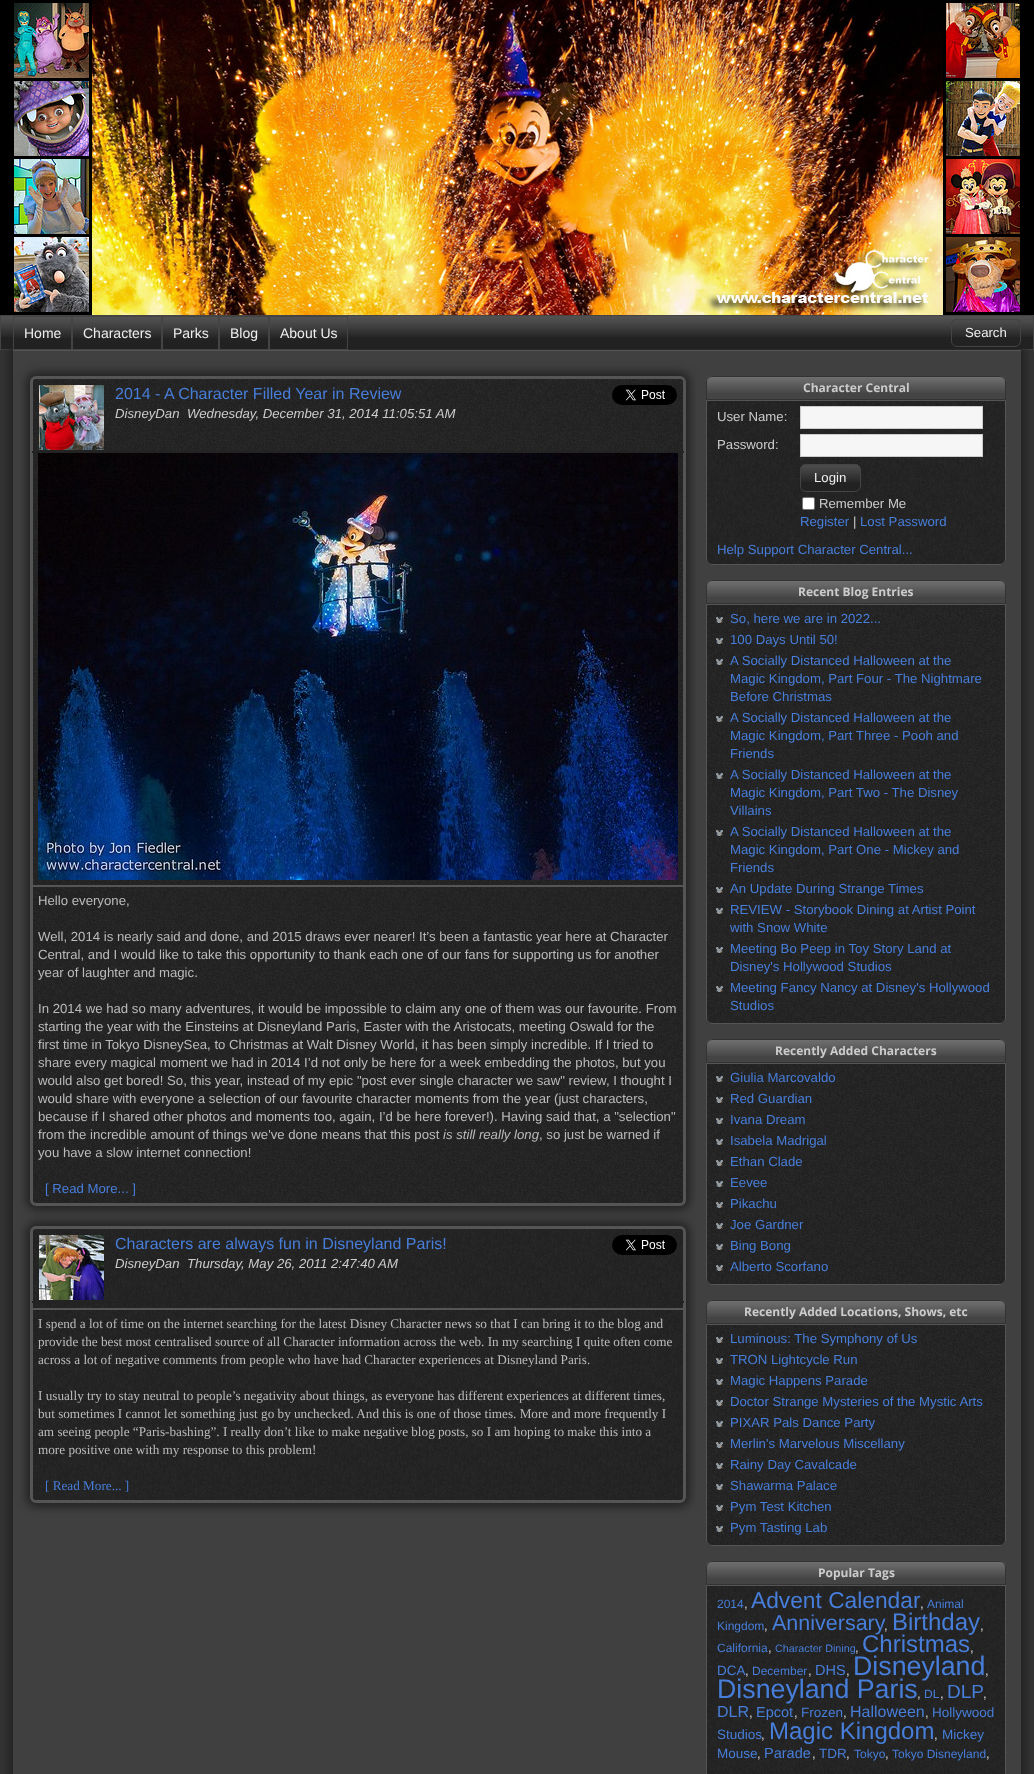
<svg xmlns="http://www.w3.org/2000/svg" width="1034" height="1774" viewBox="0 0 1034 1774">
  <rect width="100%" height="100%" fill="rgb(51,51,51)"/>
  <rect x="0" y="0" width="1034" height="315" fill="rgb(0,0,0)"/>
  <image x="14" y="3" width="75" height="75" href="pic1.png"/>
  <image x="92" y="0" width="851" height="315" href="pic2.png"/>
  <image x="946" y="3" width="74" height="75" href="pic3.png"/>
  <image x="14" y="81" width="75" height="75" href="pic4.png"/>
  <image x="946" y="81" width="74" height="75" href="pic5.png"/>
  <image x="14" y="159" width="75" height="75" href="pic6.png"/>
  <image x="946" y="159" width="74" height="75" href="pic7.png"/>
  <image x="14" y="237" width="75" height="75" href="pic8.png"/>
  <image x="946" y="237" width="74" height="75" href="pic9.png"/>
  <rect x="1" y="337" width="1032" height="12" fill="rgb(34,34,34)"/>
  <image x="1" y="316" width="1032" height="21" href="pic10.png"/>
  <rect x="0.5" y="315.5" width="1033" height="34" fill="none" stroke="rgb(68,68,68)"/>
  <rect x="9" y="346" width="1016" height="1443" fill="rgb(34,34,34)" filter="blur(5px)"/>
  <image x="14" y="317" width="57" height="21" href="pic11.png"/>
  <rect x="13.5" y="316.5" width="58" height="33" fill="none" stroke="rgb(68,68,68)"/>
  <text x="24" y="338" font-family="Liberation Sans" font-size="14" fill="rgb(238,238,238)">Home</text>
  <image x="73" y="317" width="88" height="21" href="pic12.png"/>
  <rect x="72.5" y="316.5" width="89" height="33" fill="none" stroke="rgb(68,68,68)"/>
  <text x="83" y="338" font-family="Liberation Sans" font-size="14" fill="rgb(238,238,238)">Characters</text>
  <image x="163" y="317" width="55" height="21" href="pic13.png"/>
  <rect x="162.5" y="316.5" width="56" height="33" fill="none" stroke="rgb(68,68,68)"/>
  <text x="173" y="338" font-family="Liberation Sans" font-size="14" fill="rgb(238,238,238)">Parks</text>
  <image x="220" y="317" width="48" height="21" href="pic14.png"/>
  <rect x="219.5" y="316.5" width="49" height="33" fill="none" stroke="rgb(68,68,68)"/>
  <text x="230" y="338" font-family="Liberation Sans" font-size="14" fill="rgb(238,238,238)">Blog</text>
  <image x="270" y="317" width="77" height="21" href="pic15.png"/>
  <rect x="269.5" y="316.5" width="78" height="33" fill="none" stroke="rgb(68,68,68)"/>
  <text x="280" y="338" font-family="Liberation Sans" font-size="14" fill="rgb(238,238,238)">About Us</text>
  <rect x="13" y="351" width="1008" height="1423" fill="rgb(64,64,64)"/>
  <rect x="13" y="350" width="1008" height="1" fill="rgb(85,85,85)"/>
  <rect x="26" y="372" width="664" height="838" rx="10" fill="rgb(34,34,34)" filter="blur(5px)"/>
  <image x="30" y="376" width="656" height="830" href="pic16.png"/>
  <rect x="31.5" y="377.5" width="653" height="827" rx="4.5" fill="none" stroke="rgb(85,85,85)" stroke-width="3"/>
  <rect x="32" y="451" width="652" height="2" fill="rgb(35,35,35)"/>
  <image x="39" y="385" width="65" height="65" href="pic17.png"/>
  <text x="115" y="399" font-family="Liberation Sans" font-size="16" fill="rgb(71,126,218)">2014 - A Character Filled Year in Review</text>
  <image x="612" y="385" width="65" height="20" href="pic18.png"/>
  <g font-family="Liberation Sans" font-size="13.2" font-style="italic" fill="rgb(204,204,204)">
    <text x="115" y="418">DisneyDan</text>
    <text x="187" y="418">Wednesday, December 31, 2014 11:05:51 AM</text>
  </g>
  <rect x="32" y="885" width="652" height="2" fill="rgb(85,85,85)"/>
  <image x="38" y="453" width="640" height="427" href="pic19.png"/>
  <g font-family="Liberation Sans" font-size="13.2" fill="rgb(187,187,187)">
    <text x="38" y="905">Hello everyone,</text>
    <text>
      <tspan x="38" y="941">Well, 2014 is nearly said and done, and 2015 draws ever nearer! It’s been a fantastic year here at Character</tspan>
      <tspan x="38" y="959">Central, and I would like to take this opportunity to thank each one of our fans for supporting us for another</tspan>
      <tspan x="38" y="977">year of laughter and magic.</tspan>
    </text>
    <text>
      <tspan x="38" y="1013">In 2014 we had so many adventures, it would be impossible to claim any one of them was our favourite. From</tspan>
      <tspan x="38" y="1031">starting the year with the Einsteins at Disneyland Paris, Easter with the Aristocats, meeting Oswald for the</tspan>
      <tspan x="38" y="1049">first time in Tokyo DisneySea, to Christmas at Walt Disney World, it has been simply incredible. If I tried to</tspan>
      <tspan x="38" y="1067">share every magical moment we had in 2014 I’d not only be here for a week embedding the photos, but you</tspan>
      <tspan x="38" y="1085">would also get bored! So, this year, instead of my epic "post ever single character we saw" review, I thought I</tspan>
      <tspan x="38" y="1103">would share with everyone a selection of our favourite character moments from the year (just characters,</tspan>
      <tspan x="38" y="1121">because if I shared other photos and moments too, again, I’d be here forever!). Having said that, a "selection"</tspan>
      <tspan x="38" y="1139">from the incredible amount of things we've done means that this post</tspan>
    </text>
  </g>
  <text x="443" y="1139" font-family="Liberation Sans" font-size="13.2" font-style="italic" fill="rgb(187,187,187)">is still really long</text>
  <g font-family="Liberation Sans" font-size="13.2" fill="rgb(187,187,187)">
    <text x="539" y="1139">, so just be warned if</text>
    <text x="38" y="1157">you have a slow internet connection!</text>
  </g>
  <text x="45" y="1193" font-family="Liberation Sans" font-size="13.2" fill="rgb(71,126,218)">[ Read More... ]</text>
  <rect x="26" y="1222" width="664" height="285" rx="10" fill="rgb(34,34,34)" filter="blur(5px)"/>
  <image x="30" y="1226" width="656" height="277" href="pic20.png"/>
  <rect x="31.5" y="1227.5" width="653" height="274" rx="4.5" fill="none" stroke="rgb(85,85,85)" stroke-width="3"/>
  <rect x="32" y="1301" width="652" height="2" fill="rgb(35,35,35)"/>
  <image x="39" y="1235" width="65" height="65" href="pic21.png"/>
  <text x="115" y="1249" font-family="Liberation Sans" font-size="16" fill="rgb(71,126,218)">Characters are always fun in Disneyland Paris!</text>
  <image x="612" y="1235" width="65" height="20" href="pic22.png"/>
  <g font-family="Liberation Sans" font-size="13.2" font-style="italic" fill="rgb(204,204,204)">
    <text x="115" y="1268">DisneyDan</text>
    <text x="187" y="1268">Thursday, May 26, 2011 2:47:40 AM</text>
  </g>
  <rect x="32" y="1308" width="652" height="2" fill="rgb(85,85,85)"/>
  <g font-family="Liberation Serif" font-size="13.2" fill="rgb(187,187,187)">
    <text>
      <tspan x="38" y="1328">I spend a lot of time on the internet searching for the latest Disney Character news so that I can bring it to the blog and</tspan>
      <tspan x="38" y="1346">provide the best most centralised source of all Character information across the web. In my searching I quite often come</tspan>
      <tspan x="38" y="1364">across a lot of negative comments from people who have had Character experiences at Disneyland Paris.</tspan>
    </text>
    <text>
      <tspan x="38" y="1400">I usually try to stay neutral to people’s negativity about things, as everyone has different experiences at different times,</tspan>
      <tspan x="38" y="1418">but sometimes I cannot let something just go by unchecked. And this is one of those times. More and more frequently I</tspan>
      <tspan x="38" y="1436">am seeing people “Paris-bashing”. I really don’t like to make negative blog posts, so I am hoping to make this into a</tspan>
      <tspan x="38" y="1454">more positive one with my response to this problem!</tspan>
    </text>
  </g>
  <text x="45" y="1490" font-family="Liberation Serif" font-size="13.2" fill="rgb(71,126,218)">[ Read More... ]</text>
  <path d="M712 376H1000C1003.5 376 1006 378.5 1006 382V400H706V382C706 378.5 708.5 376 712 376Z" fill="rgb(68,68,68)"/>
  <image x="706" y="376" width="300" height="17" href="pic23.png"/>
  <path d="M712 376.5H1000C1003 376.5 1005.5 379 1005.5 382V399.5H706.5V382C706.5 379 709 376.5 712 376.5Z" fill="none" stroke="rgb(51,51,51)"/>
  <text x="803" y="392" font-family="Open Sans" font-size="12" font-weight="bold" fill="rgb(204,204,204)">Character Central</text>
  <image x="706" y="401" width="300" height="164" href="pic24.png"/>
  <path d="M706.5 400.5H1005.5V559C1005.5 562 1003 564.5 1000 564.5H712C709 564.5 706.5 562 706.5 559Z" fill="none" stroke="rgb(85,85,85)"/>
  <text x="717" y="421" font-family="Liberation Sans" font-size="13.2" fill="rgb(204,204,204)">User Name:</text>
  <rect x="800.5" y="406.5" width="182" height="22" fill="rgb(246,246,246)" stroke="rgb(204,204,204)"/>
  <text x="717" y="449" font-family="Liberation Sans" font-size="13.2" fill="rgb(204,204,204)">Password:</text>
  <rect x="800.5" y="434.5" width="182" height="22" fill="rgb(246,246,246)" stroke="rgb(204,204,204)"/>
  <rect x="800" y="464" width="61" height="28" rx="6" fill="rgb(34,34,34)"/>
  <image x="800" y="464" width="61" height="18" href="pic25.png"/>
  <rect x="800.5" y="464.5" width="60" height="27" rx="5.5" fill="none" stroke="rgb(68,68,68)"/>
  <text x="814" y="482" font-family="Liberation Sans" font-size="13.2" fill="rgb(238,238,238)">Login</text>
  <rect x="802.5" y="497.5" width="12" height="12" rx="1.5" fill="rgb(255,255,255)" stroke="rgb(118,118,118)"/>
  <text x="819" y="508" font-family="Liberation Sans" font-size="13.2" fill="rgb(204,204,204)">Remember Me</text>
  <text x="800" y="526" font-family="Liberation Sans" font-size="13.2" fill="rgb(71,126,218)">Register</text>
  <text x="853" y="526" font-family="Liberation Sans" font-size="13.2" fill="rgb(204,204,204)">|</text>
  <g font-family="Liberation Sans" font-size="13.2" fill="rgb(71,126,218)">
    <text x="860" y="526">Lost Password</text>
    <text x="717" y="554">Help Support Character Central...</text>
  </g>
  <path d="M712 580H1000C1003.5 580 1006 582.5 1006 586V604H706V586C706 582.5 708.5 580 712 580Z" fill="rgb(68,68,68)"/>
  <image x="706" y="580" width="300" height="17" href="pic23.png"/>
  <path d="M712 580.5H1000C1003 580.5 1005.5 583 1005.5 586V603.5H706.5V586C706.5 583 709 580.5 712 580.5Z" fill="none" stroke="rgb(51,51,51)"/>
  <text x="798" y="596" font-family="Open Sans" font-size="12" font-weight="bold" fill="rgb(204,204,204)">Recent Blog Entries</text>
  <image x="706" y="605" width="300" height="419" href="pic26.png"/>
  <path d="M706.5 604.5H1005.5V1018C1005.5 1021 1003 1023.5 1000 1023.5H712C709 1023.5 706.5 1021 706.5 1018Z" fill="none" stroke="rgb(85,85,85)"/>
  <image x="716" y="617" width="7" height="6" href="pic27.png"/>
  <text x="730" y="623" font-family="Liberation Sans" font-size="13.2" fill="rgb(71,126,218)">So, here we are in 2022...</text>
  <image x="716" y="638" width="7" height="6" href="pic27.png"/>
  <text x="730" y="644" font-family="Liberation Sans" font-size="13.2" fill="rgb(71,126,218)">100 Days Until 50!</text>
  <image x="716" y="659" width="7" height="6" href="pic27.png"/>
  <g font-family="Liberation Sans" font-size="13.2" fill="rgb(71,126,218)">
    <text>
      <tspan x="730" y="665">A Socially Distanced Halloween at the</tspan>
      <tspan x="730" y="683">Magic Kingdom, Part Four - The Nightmare</tspan>
      <tspan x="730" y="701">Before Christmas</tspan>
    </text>
  </g>
  <image x="716" y="716" width="7" height="6" href="pic27.png"/>
  <g font-family="Liberation Sans" font-size="13.2" fill="rgb(71,126,218)">
    <text>
      <tspan x="730" y="722">A Socially Distanced Halloween at the</tspan>
      <tspan x="730" y="740">Magic Kingdom, Part Three - Pooh and</tspan>
      <tspan x="730" y="758">Friends</tspan>
    </text>
  </g>
  <image x="716" y="773" width="7" height="6" href="pic27.png"/>
  <g font-family="Liberation Sans" font-size="13.2" fill="rgb(71,126,218)">
    <text>
      <tspan x="730" y="779">A Socially Distanced Halloween at the</tspan>
      <tspan x="730" y="797">Magic Kingdom, Part Two - The Disney</tspan>
      <tspan x="730" y="815">Villains</tspan>
    </text>
  </g>
  <image x="716" y="830" width="7" height="6" href="pic27.png"/>
  <g font-family="Liberation Sans" font-size="13.2" fill="rgb(71,126,218)">
    <text>
      <tspan x="730" y="836">A Socially Distanced Halloween at the</tspan>
      <tspan x="730" y="854">Magic Kingdom, Part One - Mickey and</tspan>
      <tspan x="730" y="872">Friends</tspan>
    </text>
  </g>
  <image x="716" y="887" width="7" height="6" href="pic27.png"/>
  <text x="730" y="893" font-family="Liberation Sans" font-size="13.2" fill="rgb(71,126,218)">An Update During Strange Times</text>
  <image x="716" y="908" width="7" height="6" href="pic27.png"/>
  <g font-family="Liberation Sans" font-size="13.2" fill="rgb(71,126,218)">
    <text>
      <tspan x="730" y="914">REVIEW - Storybook Dining at Artist Point</tspan>
      <tspan x="730" y="932">with Snow White</tspan>
    </text>
  </g>
  <image x="716" y="947" width="7" height="6" href="pic27.png"/>
  <g font-family="Liberation Sans" font-size="13.2" fill="rgb(71,126,218)">
    <text>
      <tspan x="730" y="953">Meeting Bo Peep in Toy Story Land at</tspan>
      <tspan x="730" y="971">Disney's Hollywood Studios</tspan>
    </text>
  </g>
  <image x="716" y="986" width="7" height="6" href="pic27.png"/>
  <g font-family="Liberation Sans" font-size="13.2" fill="rgb(71,126,218)">
    <text>
      <tspan x="730" y="992">Meeting Fancy Nancy at Disney's Hollywood</tspan>
      <tspan x="730" y="1010">Studios</tspan>
    </text>
  </g>
  <path d="M712 1039H1000C1003.5 1039 1006 1041.5 1006 1045V1063H706V1045C706 1041.5 708.5 1039 712 1039Z" fill="rgb(68,68,68)"/>
  <image x="706" y="1039" width="300" height="17" href="pic23.png"/>
  <path d="M712 1039.5H1000C1003 1039.5 1005.5 1042 1005.5 1045V1062.5H706.5V1045C706.5 1042 709 1039.5 712 1039.5Z" fill="none" stroke="rgb(51,51,51)"/>
  <text x="775" y="1055" font-family="Open Sans" font-size="12" font-weight="bold" fill="rgb(204,204,204)">Recently Added Characters</text>
  <image x="706" y="1064" width="300" height="221" href="pic28.png"/>
  <path d="M706.5 1063.5H1005.5V1279C1005.5 1282 1003 1284.5 1000 1284.5H712C709 1284.5 706.5 1282 706.5 1279Z" fill="none" stroke="rgb(85,85,85)"/>
  <image x="716" y="1076" width="7" height="6" href="pic27.png"/>
  <text x="730" y="1082" font-family="Liberation Sans" font-size="13.2" fill="rgb(71,126,218)">Giulia Marcovaldo</text>
  <image x="716" y="1097" width="7" height="6" href="pic27.png"/>
  <text x="730" y="1103" font-family="Liberation Sans" font-size="13.2" fill="rgb(71,126,218)">Red Guardian</text>
  <image x="716" y="1118" width="7" height="6" href="pic27.png"/>
  <text x="730" y="1124" font-family="Liberation Sans" font-size="13.2" fill="rgb(71,126,218)">Ivana Dream</text>
  <image x="716" y="1139" width="7" height="6" href="pic27.png"/>
  <text x="730" y="1145" font-family="Liberation Sans" font-size="13.2" fill="rgb(71,126,218)">Isabela Madrigal</text>
  <image x="716" y="1160" width="7" height="6" href="pic27.png"/>
  <text x="730" y="1166" font-family="Liberation Sans" font-size="13.2" fill="rgb(71,126,218)">Ethan Clade</text>
  <image x="716" y="1181" width="7" height="6" href="pic27.png"/>
  <text x="730" y="1187" font-family="Liberation Sans" font-size="13.2" fill="rgb(71,126,218)">Eevee</text>
  <image x="716" y="1202" width="7" height="6" href="pic27.png"/>
  <text x="730" y="1208" font-family="Liberation Sans" font-size="13.2" fill="rgb(71,126,218)">Pikachu</text>
  <image x="716" y="1223" width="7" height="6" href="pic27.png"/>
  <text x="730" y="1229" font-family="Liberation Sans" font-size="13.2" fill="rgb(71,126,218)">Joe Gardner</text>
  <image x="716" y="1244" width="7" height="6" href="pic27.png"/>
  <text x="730" y="1250" font-family="Liberation Sans" font-size="13.2" fill="rgb(71,126,218)">Bing Bong</text>
  <image x="716" y="1265" width="7" height="6" href="pic27.png"/>
  <text x="730" y="1271" font-family="Liberation Sans" font-size="13.2" fill="rgb(71,126,218)">Alberto Scorfano</text>
  <path d="M712 1300H1000C1003.5 1300 1006 1302.5 1006 1306V1324H706V1306C706 1302.5 708.5 1300 712 1300Z" fill="rgb(68,68,68)"/>
  <image x="706" y="1300" width="300" height="17" href="pic23.png"/>
  <path d="M712 1300.5H1000C1003 1300.5 1005.5 1303 1005.5 1306V1323.5H706.5V1306C706.5 1303 709 1300.5 712 1300.5Z" fill="none" stroke="rgb(51,51,51)"/>
  <text x="744" y="1316" font-family="Open Sans" font-size="12" font-weight="bold" fill="rgb(204,204,204)">Recently Added Locations, Shows, etc</text>
  <image x="706" y="1325" width="300" height="221" href="pic28.png"/>
  <path d="M706.5 1324.5H1005.5V1540C1005.5 1543 1003 1545.5 1000 1545.5H712C709 1545.5 706.5 1543 706.5 1540Z" fill="none" stroke="rgb(85,85,85)"/>
  <image x="716" y="1337" width="7" height="6" href="pic27.png"/>
  <text x="730" y="1343" font-family="Liberation Sans" font-size="13.2" fill="rgb(71,126,218)">Luminous: The Symphony of Us</text>
  <image x="716" y="1358" width="7" height="6" href="pic27.png"/>
  <text x="730" y="1364" font-family="Liberation Sans" font-size="13.2" fill="rgb(71,126,218)">TRON Lightcycle Run</text>
  <image x="716" y="1379" width="7" height="6" href="pic27.png"/>
  <text x="730" y="1385" font-family="Liberation Sans" font-size="13.2" fill="rgb(71,126,218)">Magic Happens Parade</text>
  <image x="716" y="1400" width="7" height="6" href="pic27.png"/>
  <text x="730" y="1406" font-family="Liberation Sans" font-size="13.2" fill="rgb(71,126,218)">Doctor Strange Mysteries of the Mystic Arts</text>
  <image x="716" y="1421" width="7" height="6" href="pic27.png"/>
  <text x="730" y="1427" font-family="Liberation Sans" font-size="13.2" fill="rgb(71,126,218)">PIXAR Pals Dance Party</text>
  <image x="716" y="1442" width="7" height="6" href="pic27.png"/>
  <text x="730" y="1448" font-family="Liberation Sans" font-size="13.2" fill="rgb(71,126,218)">Merlin's Marvelous Miscellany</text>
  <image x="716" y="1463" width="7" height="6" href="pic27.png"/>
  <text x="730" y="1469" font-family="Liberation Sans" font-size="13.2" fill="rgb(71,126,218)">Rainy Day Cavalcade</text>
  <image x="716" y="1484" width="7" height="6" href="pic27.png"/>
  <text x="730" y="1490" font-family="Liberation Sans" font-size="13.2" fill="rgb(71,126,218)">Shawarma Palace</text>
  <image x="716" y="1505" width="7" height="6" href="pic27.png"/>
  <text x="730" y="1511" font-family="Liberation Sans" font-size="13.2" fill="rgb(71,126,218)">Pym Test Kitchen</text>
  <image x="716" y="1526" width="7" height="6" href="pic27.png"/>
  <text x="730" y="1532" font-family="Liberation Sans" font-size="13.2" fill="rgb(71,126,218)">Pym Tasting Lab</text>
  <path d="M712 1561H1000C1003.5 1561 1006 1563.5 1006 1567V1585H706V1567C706 1563.5 708.5 1561 712 1561Z" fill="rgb(68,68,68)"/>
  <image x="706" y="1561" width="300" height="17" href="pic23.png"/>
  <path d="M712 1561.5H1000C1003 1561.5 1005.5 1564 1005.5 1567V1584.5H706.5V1567C706.5 1564 709 1561.5 712 1561.5Z" fill="none" stroke="rgb(51,51,51)"/>
  <text x="818" y="1577" font-family="Open Sans" font-size="12" font-weight="bold" fill="rgb(204,204,204)">Popular Tags</text>
  <image x="707" y="1586" width="298" height="188" href="pic29.png"/>
  <rect x="706.5" y="1585.5" width="299" height="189" fill="none" stroke="rgb(85,85,85)"/>
  <text x="717" y="1608" font-family="Liberation Sans" font-size="12" fill="rgb(71,126,218)">2014</text>
  <text x="744" y="1608" font-family="Liberation Sans" font-size="13.2" fill="rgb(204,204,204)">,</text>
  <text x="751" y="1608" font-family="Liberation Sans" font-size="22.75" fill="rgb(71,126,218)">Advent Calendar</text>
  <text x="920" y="1608" font-family="Liberation Sans" font-size="13.2" fill="rgb(204,204,204)">,</text>
  <g font-family="Liberation Sans" font-size="12" fill="rgb(71,126,218)">
    <text x="927" y="1608">Animal</text>
    <text x="717" y="1630">Kingdom</text>
  </g>
  <text x="764" y="1630" font-family="Liberation Sans" font-size="13.2" fill="rgb(204,204,204)">,</text>
  <text x="772" y="1630" font-family="Liberation Sans" font-size="21.5" fill="rgb(71,126,218)">Anniversary</text>
  <text x="884" y="1630" font-family="Liberation Sans" font-size="13.2" fill="rgb(204,204,204)">,</text>
  <text x="892" y="1630" font-family="Liberation Sans" font-size="24" fill="rgb(71,126,218)">Birthday</text>
  <text x="980" y="1630" font-family="Liberation Sans" font-size="13.2" fill="rgb(204,204,204)">,</text>
  <text x="717" y="1652" font-family="Liberation Sans" font-size="12" fill="rgb(71,126,218)">California</text>
  <text x="768" y="1652" font-family="Liberation Sans" font-size="13.2" fill="rgb(204,204,204)">,</text>
  <text x="775" y="1652" font-family="Liberation Sans" font-size="10.75" fill="rgb(71,126,218)">Character Dining</text>
  <text x="855" y="1652" font-family="Liberation Sans" font-size="13.2" fill="rgb(204,204,204)">,</text>
  <text x="862" y="1652" font-family="Liberation Sans" font-size="24" fill="rgb(71,126,218)">Christmas</text>
  <text x="970" y="1652" font-family="Liberation Sans" font-size="13.2" fill="rgb(204,204,204)">,</text>
  <text x="717" y="1675" font-family="Liberation Sans" font-size="13.5" fill="rgb(71,126,218)">DCA</text>
  <text x="745" y="1675" font-family="Liberation Sans" font-size="13.2" fill="rgb(204,204,204)">,</text>
  <text x="752" y="1675" font-family="Liberation Sans" font-size="12" fill="rgb(71,126,218)">December</text>
  <text x="808" y="1675" font-family="Liberation Sans" font-size="13.2" fill="rgb(204,204,204)">,</text>
  <text x="815" y="1675" font-family="Liberation Sans" font-size="14.5" fill="rgb(71,126,218)">DHS</text>
  <text x="846" y="1675" font-family="Liberation Sans" font-size="13.2" fill="rgb(204,204,204)">,</text>
  <text x="853" y="1675" font-family="Liberation Sans" font-size="26.75" fill="rgb(71,126,218)">Disneyland</text>
  <text x="985" y="1675" font-family="Liberation Sans" font-size="13.2" fill="rgb(204,204,204)">,</text>
  <text x="717" y="1698" font-family="Liberation Sans" font-size="26.75" fill="rgb(71,126,218)">Disneyland Paris</text>
  <text x="917" y="1698" font-family="Liberation Sans" font-size="13.2" fill="rgb(204,204,204)">,</text>
  <text x="924" y="1698" font-family="Liberation Sans" font-size="12" fill="rgb(71,126,218)">DL</text>
  <text x="940" y="1698" font-family="Liberation Sans" font-size="13.2" fill="rgb(204,204,204)">,</text>
  <text x="947" y="1698" font-family="Liberation Sans" font-size="19" fill="rgb(71,126,218)">DLP</text>
  <text x="983" y="1698" font-family="Liberation Sans" font-size="13.2" fill="rgb(204,204,204)">,</text>
  <text x="717" y="1717" font-family="Liberation Sans" font-size="16" fill="rgb(71,126,218)">DLR</text>
  <text x="749" y="1717" font-family="Liberation Sans" font-size="13.2" fill="rgb(204,204,204)">,</text>
  <text x="756" y="1717" font-family="Liberation Sans" font-size="14.5" fill="rgb(71,126,218)">Epcot</text>
  <text x="794" y="1717" font-family="Liberation Sans" font-size="13.2" fill="rgb(204,204,204)">,</text>
  <text x="801" y="1717" font-family="Liberation Sans" font-size="13.5" fill="rgb(71,126,218)">Frozen</text>
  <text x="843" y="1717" font-family="Liberation Sans" font-size="13.2" fill="rgb(204,204,204)">,</text>
  <text x="850" y="1717" font-family="Liberation Sans" font-size="16" fill="rgb(71,126,218)">Halloween</text>
  <text x="925" y="1717" font-family="Liberation Sans" font-size="13.2" fill="rgb(204,204,204)">,</text>
  <g font-family="Liberation Sans" font-size="13.5" fill="rgb(71,126,218)">
    <text x="932" y="1717">Hollywood</text>
    <text x="717" y="1739">Studios</text>
  </g>
  <text x="761" y="1739" font-family="Liberation Sans" font-size="13.2" fill="rgb(204,204,204)">,</text>
  <text x="769" y="1739" font-family="Liberation Sans" font-size="24" fill="rgb(71,126,218)">Magic Kingdom</text>
  <text x="934" y="1739" font-family="Liberation Sans" font-size="13.2" fill="rgb(204,204,204)">,</text>
  <g font-family="Liberation Sans" font-size="13.5" fill="rgb(71,126,218)">
    <text x="942" y="1739">Mickey</text>
    <text x="717" y="1758">Mouse</text>
  </g>
  <text x="757" y="1758" font-family="Liberation Sans" font-size="13.2" fill="rgb(204,204,204)">,</text>
  <text x="764" y="1758" font-family="Liberation Sans" font-size="14.5" fill="rgb(71,126,218)">Parade</text>
  <text x="812" y="1758" font-family="Liberation Sans" font-size="13.2" fill="rgb(204,204,204)">,</text>
  <text x="819" y="1758" font-family="Liberation Sans" font-size="13.5" fill="rgb(71,126,218)">TDR</text>
  <text x="846" y="1758" font-family="Liberation Sans" font-size="13.2" fill="rgb(204,204,204)">,</text>
  <text x="854" y="1758" font-family="Liberation Sans" font-size="12" fill="rgb(71,126,218)">Tokyo</text>
  <text x="885" y="1758" font-family="Liberation Sans" font-size="13.2" fill="rgb(204,204,204)">,</text>
  <text x="892" y="1758" font-family="Liberation Sans" font-size="12" fill="rgb(71,126,218)">Tokyo Disneyland</text>
  <text x="986" y="1758" font-family="Liberation Sans" font-size="13.2" fill="rgb(204,204,204)">,</text>
  <rect x="951" y="319" width="70" height="28" rx="6" fill="rgb(34,34,34)"/>
  <image x="951" y="319" width="70" height="18" href="pic30.png"/>
  <rect x="951.5" y="319.5" width="69" height="27" rx="5.5" fill="none" stroke="rgb(68,68,68)"/>
  <text x="965" y="337" font-family="Liberation Sans" font-size="13.2" fill="rgb(238,238,238)">Search</text>
</svg>
